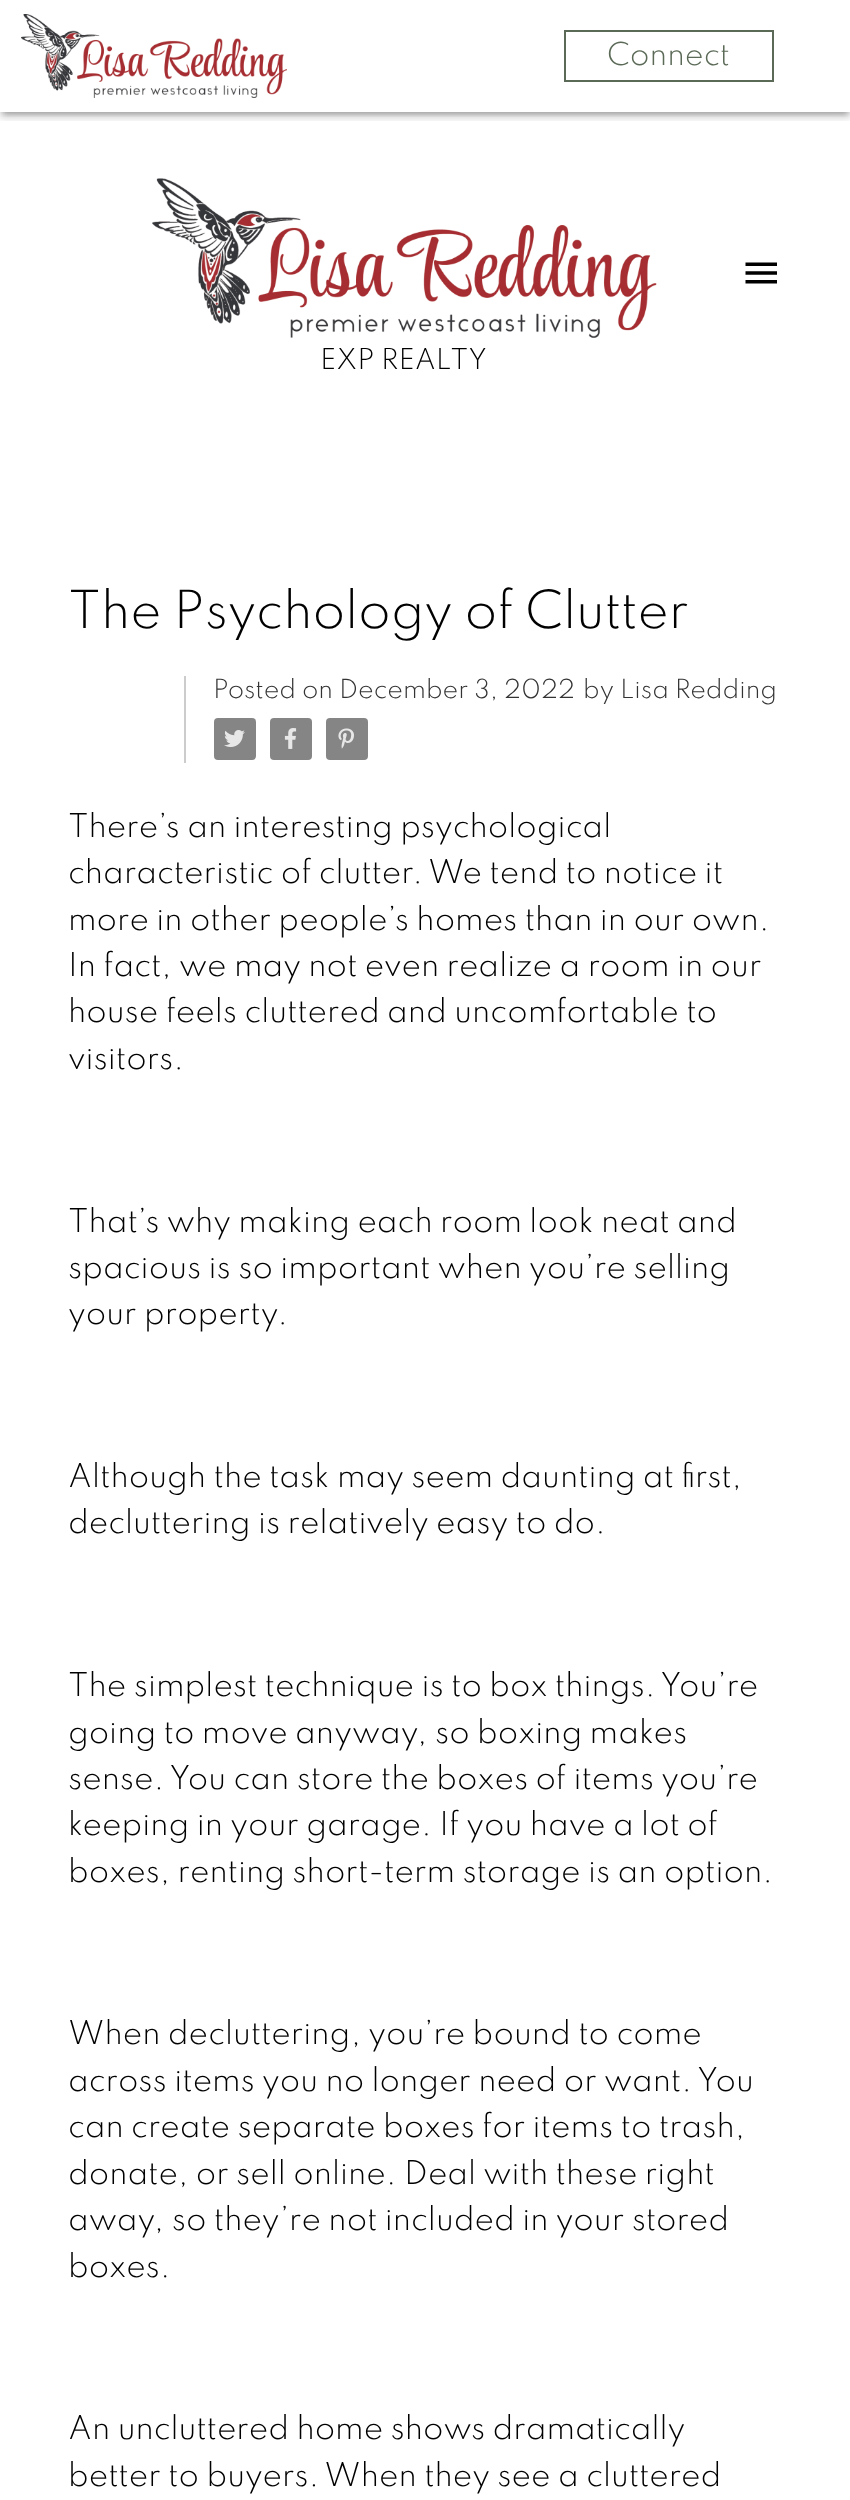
<svg xmlns="http://www.w3.org/2000/svg" width="850" height="2500" viewBox="0 0 850 2500">
  <defs>
    <clipPath id="clip1"><rect x="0" y="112" width="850" height="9"/></clipPath>
    <clipPath id="clip2"><rect x="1" y="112" width="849" height="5"/></clipPath>
  </defs>
  <rect width="100%" height="100%" fill="rgb(255,255,255)"/>
  <g clip-path="url(#clip1)">
    <rect x="0" y="2" width="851" height="112" fill="rgba(0,0,0,0.12)" filter="blur(7px)"/>
    <rect x="0" y="5" width="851" height="112" fill="rgba(0,0,0,0.14)" filter="blur(3.5px)"/>
  </g>
  <g clip-path="url(#clip2)">
    <rect x="4" y="9" width="843" height="105" fill="rgba(0,0,0,0.2)" filter="blur(2.5px)"/>
  </g>
  <image x="21" y="14" width="266" height="84" href="pic1.png"/>
  <rect x="565" y="31" width="208" height="50" fill="none" stroke="rgb(91,106,87)" stroke-width="2"/>
  <text x="607" y="65" font-family="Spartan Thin" font-size="28" font-weight="300" fill="rgb(91,106,87)">Connect</text>
  <image x="745" y="262" width="32" height="22" href="pic2.png"/>
  <image x="152" y="178" width="505" height="160" href="pic3.png"/>
  <text x="320" y="369" font-family="Spartan Thin" font-size="25.5" font-weight="300" fill="rgb(0,0,0)">EXP REALTY</text>
  <text x="68" y="628" font-family="Spartan Thin" font-size="46.5" font-weight="300" fill="rgb(0,0,0)">The Psychology of Clutter</text>
  <rect x="184" y="676" width="2" height="87" fill="rgb(204,204,204)"/>
  <g font-family="Spartan Thin" font-size="23.3" font-weight="300" fill="rgb(51,51,51)">
    <text x="213" y="698">Posted on December 3, 2022</text>
    <text x="583" y="698">by Lisa Redding</text>
  </g>
  <rect x="214" y="718" width="42" height="42" rx="4" fill="rgb(133,133,133)"/>
  <image x="224" y="730" width="21" height="17" href="pic4.png"/>
  <rect x="270" y="718" width="42" height="42" rx="4" fill="rgb(133,133,133)"/>
  <image x="284" y="728" width="13" height="21" href="pic5.png"/>
  <rect x="326" y="718" width="42" height="42" rx="4" fill="rgb(133,133,133)"/>
  <image x="338" y="728" width="16" height="21" href="pic6.png"/>
  <g font-family="Spartan Thin" font-size="29" font-weight="300" fill="rgb(0,0,0)">
    <text>
      <tspan x="68" y="837">There’s an interesting psychological</tspan>
      <tspan x="68" y="883">characteristic of clutter. We tend to notice it</tspan>
      <tspan x="68" y="930">more in other people’s homes than in our own.</tspan>
      <tspan x="68" y="976">In fact, we may not even realize a room in our</tspan>
      <tspan x="68" y="1022">house feels cluttered and uncomfortable to</tspan>
      <tspan x="68" y="1069">visitors.</tspan>
    </text>
    <text>
      <tspan x="68" y="1232">That’s why making each room look neat and</tspan>
      <tspan x="68" y="1278">spacious is so important when you’re selling</tspan>
      <tspan x="68" y="1324">your property.</tspan>
    </text>
    <text>
      <tspan x="68" y="1487">Although the task may seem daunting at first,</tspan>
      <tspan x="68" y="1533">decluttering is relatively easy to do.</tspan>
    </text>
    <text>
      <tspan x="68" y="1696">The simplest technique is to box things. You’re</tspan>
      <tspan x="68" y="1743">going to move anyway, so boxing makes</tspan>
      <tspan x="68" y="1789">sense. You can store the boxes of items you’re</tspan>
      <tspan x="68" y="1835">keeping in your garage. If you have a lot of</tspan>
      <tspan x="68" y="1882">boxes, renting short-term storage is an option.</tspan>
    </text>
    <text>
      <tspan x="68" y="2044">When decluttering, you’re bound to come</tspan>
      <tspan x="68" y="2091">across items you no longer need or want. You</tspan>
      <tspan x="68" y="2137">can create separate boxes for items to trash,</tspan>
      <tspan x="68" y="2184">donate, or sell online. Deal with these right</tspan>
      <tspan x="68" y="2230">away, so they’re not included in your stored</tspan>
      <tspan x="68" y="2277">boxes.</tspan>
    </text>
    <text>
      <tspan x="68" y="2439">An uncluttered home shows dramatically</tspan>
      <tspan x="68" y="2486">better to buyers. When they see a cluttered</tspan>
    </text>
  </g>
</svg>
